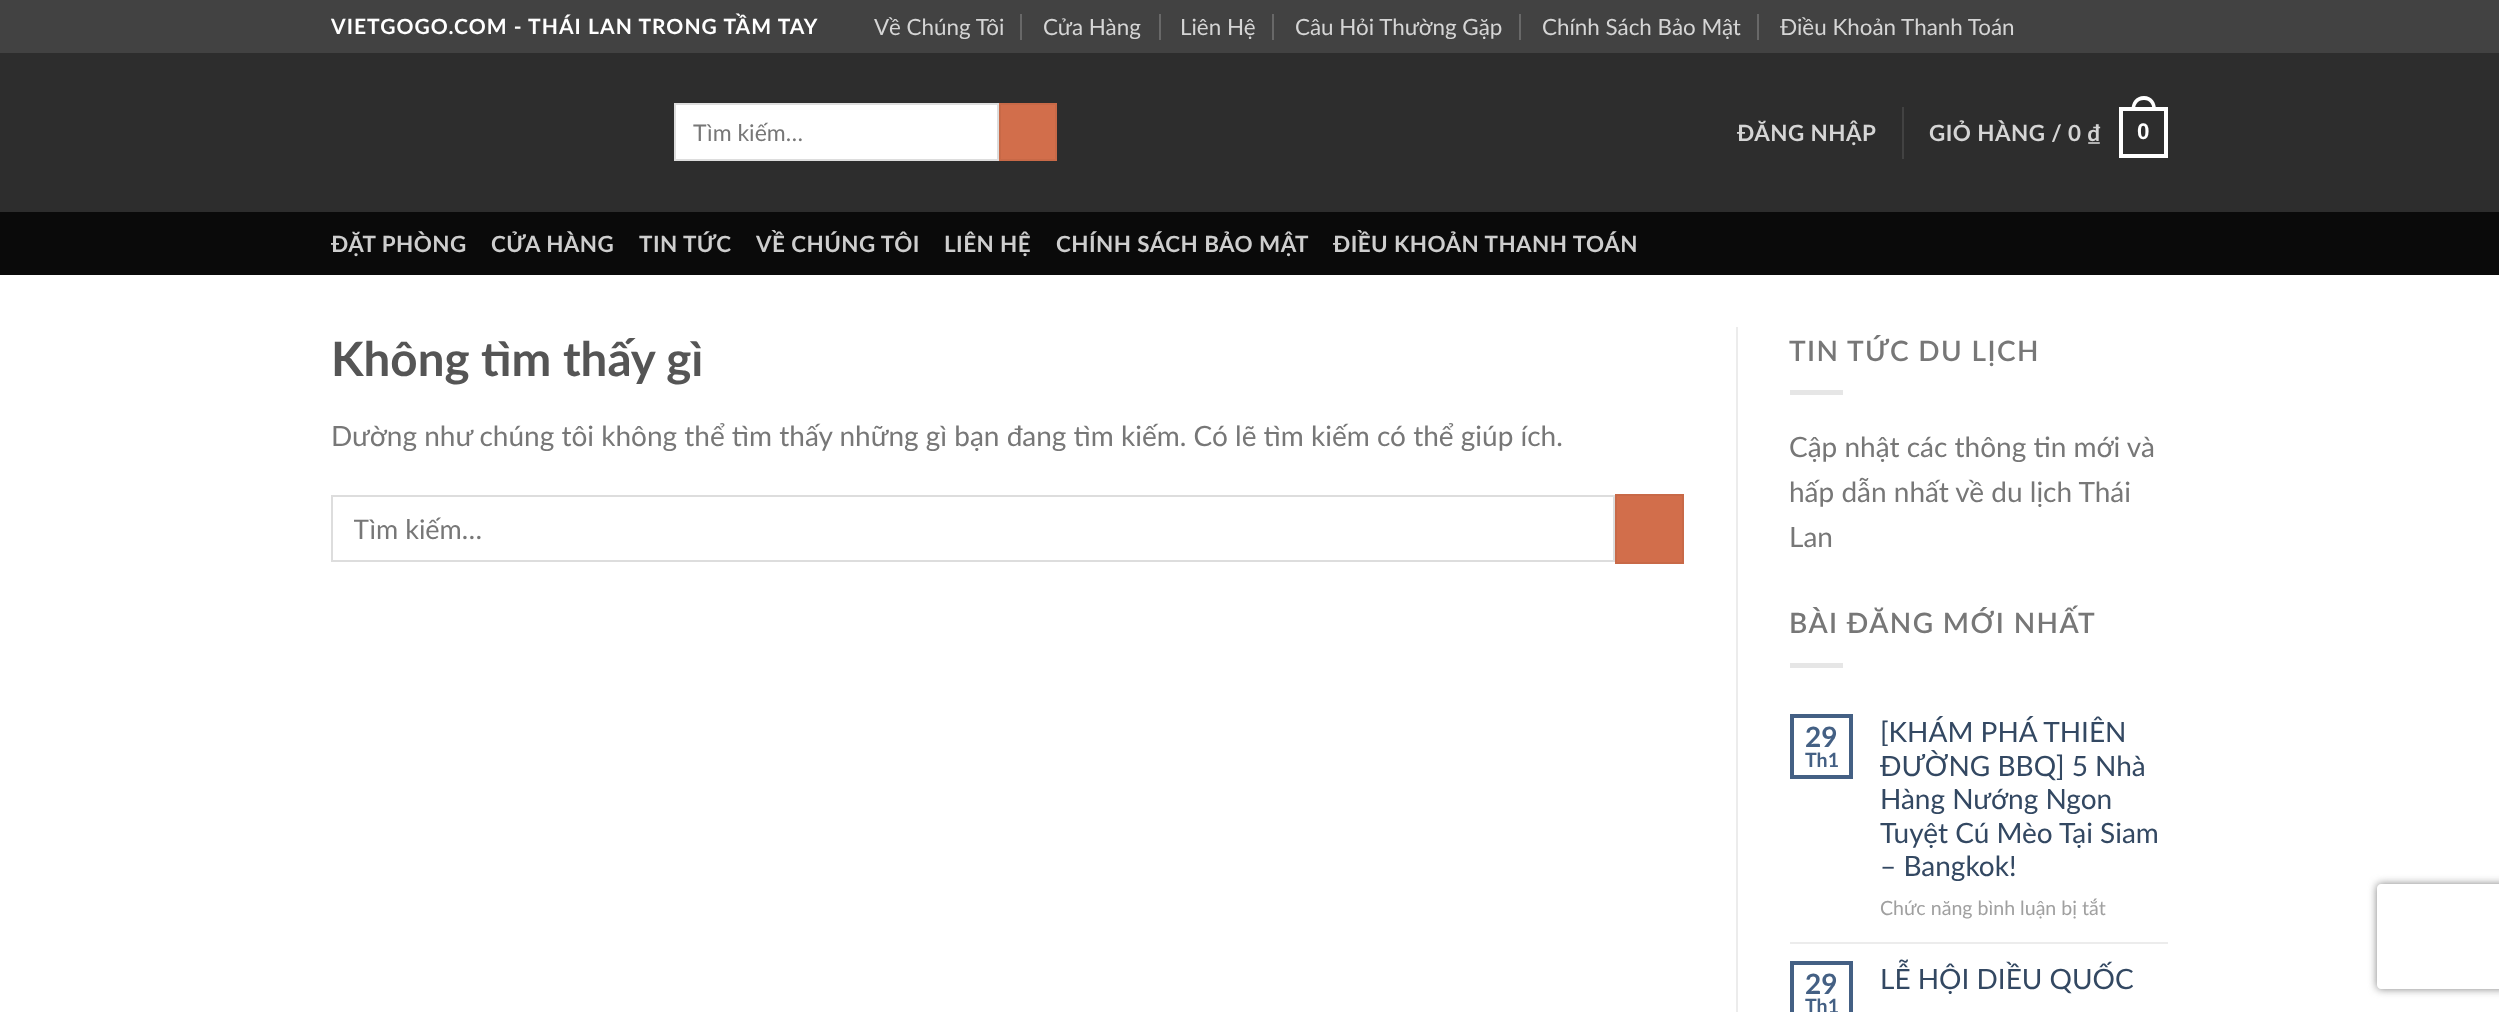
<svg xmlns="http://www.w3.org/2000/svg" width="2499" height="1012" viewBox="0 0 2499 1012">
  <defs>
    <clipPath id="clip1"><rect x="354" y="513" width="1232" height="31"/></clipPath>
    <clipPath id="clip2"><path d="M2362 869H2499V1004H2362ZM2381 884H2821C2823 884 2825 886 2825 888V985C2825 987 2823 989 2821 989H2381C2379 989 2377 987 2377 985V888C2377 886 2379 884 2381 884Z" clip-rule="evenodd"/></clipPath>
  </defs>
  <rect width="100%" height="100%" fill="rgb(255,255,255)"/>
  <rect x="0" y="0" width="2499" height="53" fill="rgb(66,66,66)"/>
  <text x="331" y="34" font-family="Lato" font-size="21" font-weight="bold" letter-spacing="1.05" fill="rgb(255,255,255)">VIETGOGO.COM - THÁI LAN TRONG TẦM TAY</text>
  <text x="874" y="35" font-family="Lato" font-size="22.4" fill="rgb(213,213,213)">Về Chúng Tôi</text>
  <rect x="1020" y="14" width="2" height="26" fill="rgb(104,104,104)"/>
  <text x="1043" y="35" font-family="Lato" font-size="22.4" fill="rgb(213,213,213)">Cửa Hàng</text>
  <rect x="1159" y="14" width="2" height="26" fill="rgb(104,104,104)"/>
  <text x="1180" y="35" font-family="Lato" font-size="22.4" fill="rgb(213,213,213)">Liên Hệ</text>
  <rect x="1272" y="14" width="2" height="26" fill="rgb(104,104,104)"/>
  <text x="1295" y="35" font-family="Lato" font-size="22.4" fill="rgb(213,213,213)">Câu Hỏi Thường Gặp</text>
  <rect x="1519" y="14" width="2" height="26" fill="rgb(104,104,104)"/>
  <text x="1542" y="35" font-family="Lato" font-size="22.4" fill="rgb(213,213,213)">Chính Sách Bảo Mật</text>
  <rect x="1757" y="14" width="2" height="26" fill="rgb(104,104,104)"/>
  <text x="1780" y="35" font-family="Lato" font-size="22.4" fill="rgb(213,213,213)">Điều Khoản Thanh Toán</text>
  <rect x="0" y="53" width="2499" height="159" fill="rgb(45,45,45)"/>
  <rect x="675" y="104" width="323" height="56" fill="rgb(255,255,255)" stroke="rgb(221,221,221)" stroke-width="2"/>
  <text x="693" y="141" font-family="Lato" font-size="23" fill="rgb(119,119,119)">Tìm kiếm…</text>
  <rect x="1000" y="104" width="56" height="56" fill="rgb(210,110,75)" stroke="rgb(200,105,71)" stroke-width="2"/>
  <text x="1737" y="141" font-family="Lato" font-size="22.4" font-weight="bold" letter-spacing="0.45" fill="rgb(213,213,213)">ĐĂNG NHẬP</text>
  <rect x="1902" y="107" width="2" height="52" fill="rgb(66,66,66)"/>
  <text x="1929" y="141" font-family="Lato" font-size="22.4" font-weight="bold" letter-spacing="0.45" fill="rgb(213,213,213)">GIỎ HÀNG / 0 ₫</text>
  <rect x="2121" y="109" width="45" height="47" fill="none" stroke="rgb(255,255,255)" stroke-width="4"/>
  <path d="M2144 96C2152 96 2156 102.5 2156 110H2131.5C2131.5 102.5 2135.5 96 2144 96ZM2144 100C2150 100 2152.5 104.5 2152.5 110H2135C2135 104.5 2137.5 100 2144 100Z" fill="rgb(255,255,255)" fill-rule="evenodd"/>
  <text x="2137" y="139" font-family="Liberation Sans" font-size="22.4" font-weight="bold" letter-spacing="0.45" fill="rgb(255,255,255)">0</text>
  <rect x="0" y="212" width="2499" height="63" fill="rgb(10,10,10)"/>
  <g font-family="Lato" font-size="22.4" font-weight="bold" letter-spacing="0.45" fill="rgb(206,206,206)">
    <text x="331" y="252">ĐẶT PHÒNG</text>
    <text x="491" y="252">CỬA HÀNG</text>
    <text x="639" y="252">TIN TỨC</text>
    <text x="756" y="252">VỀ CHÚNG TÔI</text>
    <text x="944" y="252">LIÊN HỆ</text>
    <text x="1056" y="252">CHÍNH SÁCH BẢO MẬT</text>
    <text x="1333" y="252">ĐIỀU KHOẢN THANH TOÁN</text>
  </g>
  <text x="331" y="376" font-family="Lato" font-size="47.5" font-weight="bold" fill="rgb(85,85,85)">Không tìm thấy gì</text>
  <text x="331" y="446" font-family="Lato" font-size="28" fill="rgb(119,119,119)">Dường như chúng tôi không thể tìm thấy những gì bạn đang tìm kiếm. Có lẽ tìm kiếm có thể giúp ích.</text>
  <rect x="332" y="496" width="1282" height="65" fill="none" stroke="rgb(221,221,221)" stroke-width="2"/>
  <g clip-path="url(#clip1)">
    <text x="353" y="539" font-family="Lato" font-size="27" fill="rgb(119,119,119)">Tìm kiếm…</text>
  </g>
  <rect x="1616" y="495" width="67" height="68" fill="rgb(210,110,75)" stroke="rgb(200,105,71)" stroke-width="2"/>
  <rect x="1736" y="327" width="2" height="685" fill="rgb(236,236,236)"/>
  <text x="1789" y="361" font-family="Lato" font-size="28" font-weight="600" letter-spacing="1.4" fill="rgb(119,119,119)">TIN TỨC DU LỊCH</text>
  <rect x="1790" y="390" width="53" height="5" fill="rgb(230,230,230)"/>
  <g font-family="Lato" font-size="28" fill="rgb(119,119,119)">
    <text>
      <tspan x="1789" y="457">Cập nhật các thông tin mới và</tspan>
      <tspan x="1789" y="502">hấp dẫn nhất về du lịch Thái</tspan>
      <tspan x="1789" y="547">Lan</tspan>
    </text>
  </g>
  <text x="1789" y="633" font-family="Lato" font-size="28" font-weight="600" letter-spacing="1.4" fill="rgb(119,119,119)">BÀI ĐĂNG MỚI NHẤT</text>
  <rect x="1790" y="663" width="53" height="5" fill="rgb(230,230,230)"/>
  <rect x="1792" y="716" width="59" height="61" fill="none" stroke="rgb(68,96,132)" stroke-width="4"/>
  <text x="1805" y="747" font-family="Lato" font-size="28" font-weight="bold" fill="rgb(68,96,132)">29</text>
  <text x="1805" y="767" font-family="Lato" font-size="19.6" font-weight="bold" fill="rgb(68,96,132)">Th1</text>
  <g font-family="Lato" font-size="28" fill="rgb(51,72,98)">
    <text>
      <tspan x="1880" y="742">[KHÁM PHÁ THIÊN</tspan>
      <tspan x="1880" y="776">ĐƯỜNG BBQ] 5 Nhà</tspan>
      <tspan x="1880" y="809">Hàng Nướng Ngon</tspan>
      <tspan x="1880" y="843">Tuyệt Cú Mèo Tại Siam</tspan>
      <tspan x="1880" y="876">– Bangkok!</tspan>
    </text>
  </g>
  <text x="1880" y="915" font-family="Lato" font-size="19.6" fill="rgb(160,160,160)">Chức năng bình luận bị tắt</text>
  <rect x="1790" y="942" width="378" height="2" fill="rgb(236,236,236)"/>
  <rect x="1792" y="963" width="59" height="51" fill="none" stroke="rgb(68,96,132)" stroke-width="4"/>
  <text x="1805" y="994" font-family="Lato" font-size="28" font-weight="bold" fill="rgb(68,96,132)">29</text>
  <text x="1805" y="1013" font-family="Lato" font-size="19.6" font-weight="bold" fill="rgb(68,96,132)">Th1</text>
  <text x="1880" y="989" font-family="Lato" font-size="28" fill="rgb(51,72,98)">LỄ HỘI DIỀU QUỐC</text>
  <g clip-path="url(#clip2)">
    <rect x="2377" y="884" width="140" height="105" rx="4" fill="rgb(128,128,128)" filter="blur(4.5px)"/>
  </g>
</svg>
